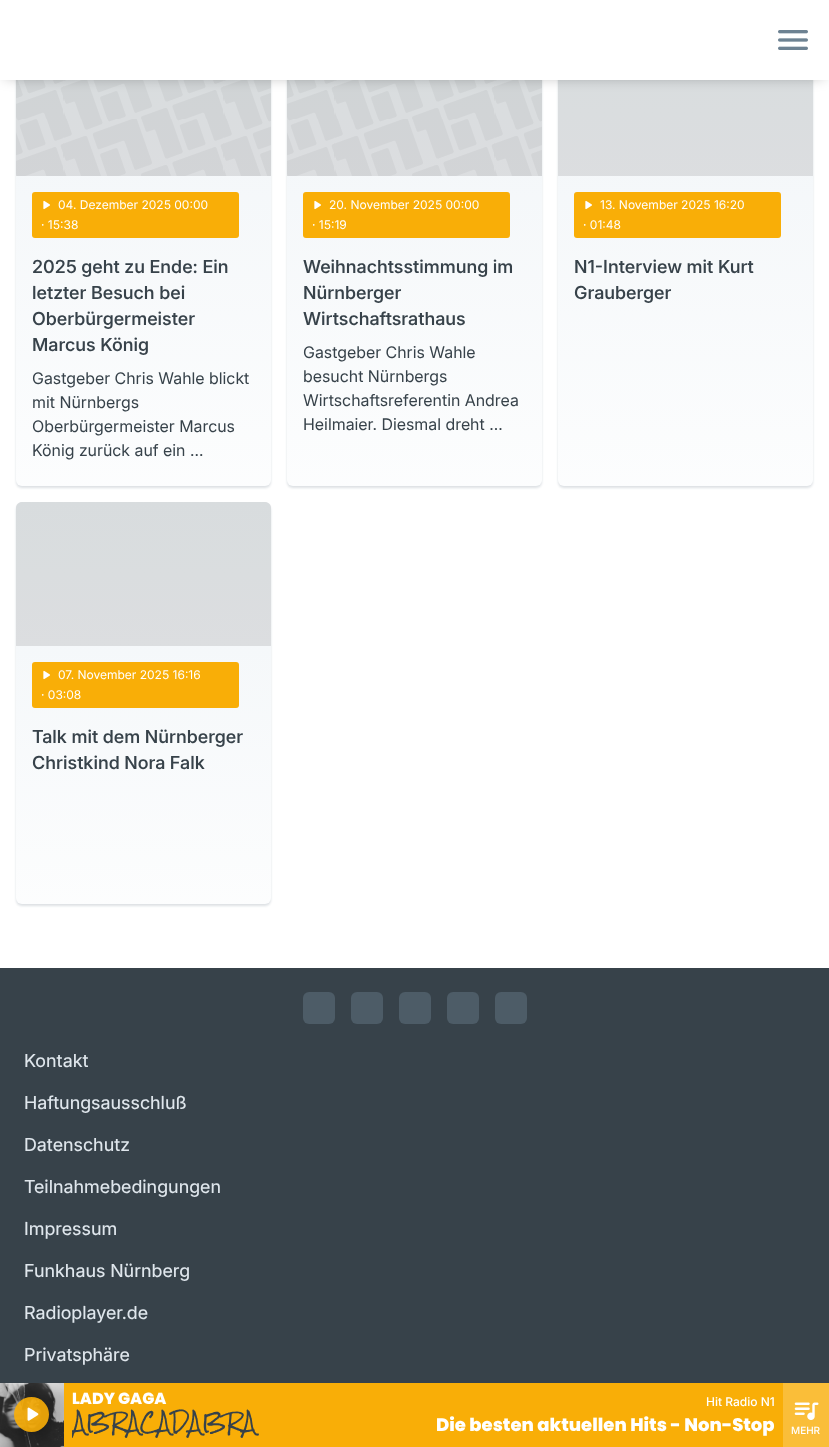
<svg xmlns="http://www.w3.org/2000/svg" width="829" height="1447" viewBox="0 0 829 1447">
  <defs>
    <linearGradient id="g1" gradientUnits="userSpaceOnUse" x1="144" y1="599" x2="144" y2="33"><stop offset="0" stop-color="rgb(255,255,255)"/><stop offset="1" stop-color="rgb(241,245,248)"/></linearGradient>
    <linearGradient id="g2" gradientUnits="userSpaceOnUse" x1="415" y1="599" x2="415" y2="33"><stop offset="0" stop-color="rgb(255,255,255)"/><stop offset="1" stop-color="rgb(241,245,248)"/></linearGradient>
    <linearGradient id="g3" gradientUnits="userSpaceOnUse" x1="686" y1="599" x2="686" y2="33"><stop offset="0" stop-color="rgb(255,255,255)"/><stop offset="1" stop-color="rgb(241,245,248)"/></linearGradient>
    <linearGradient id="g4" gradientUnits="userSpaceOnUse" x1="144" y1="1005" x2="144" y2="502"><stop offset="0" stop-color="rgb(255,255,255)"/><stop offset="1" stop-color="rgb(241,245,248)"/></linearGradient>
    <clipPath id="clip1"><rect x="72" y="1409" width="243" height="32"/></clipPath>
  </defs>
  <rect width="100%" height="100%" fill="rgb(255,255,255)"/>
  <rect x="16" y="35" width="255" height="453" rx="6" fill="rgba(26,55,77,0.15)" filter="blur(1px)"/>
  <rect x="16" y="33" width="255" height="453" rx="6" fill="url(#g1)"/>
  <rect x="16" y="80" width="255" height="96" fill="rgba(0,0,0,0.1)"/>
  <image x="16" y="80" width="255" height="96" href="pic2.png"/>
  <rect x="287" y="35" width="255" height="453" rx="6" fill="rgba(26,55,77,0.15)" filter="blur(1px)"/>
  <rect x="287" y="33" width="255" height="453" rx="6" fill="url(#g2)"/>
  <rect x="287" y="80" width="255" height="96" fill="rgba(0,0,0,0.1)"/>
  <image x="287" y="80" width="255" height="96" href="pic2.png"/>
  <rect x="558" y="35" width="255" height="453" rx="6" fill="rgba(26,55,77,0.15)" filter="blur(1px)"/>
  <rect x="558" y="33" width="255" height="453" rx="6" fill="url(#g3)"/>
  <rect x="558" y="80" width="255" height="96" fill="rgba(0,0,0,0.1)"/>
  <rect x="5" y="5" width="819" height="70" fill="rgba(0,0,0,0.4)" filter="blur(7.5px)"/>
  <rect x="0" y="0" width="829" height="80" fill="rgb(255,255,255)"/>
  <image x="778" y="30" width="30" height="20" href="pic1.png"/>
  <rect x="32" y="192" width="207" height="46" rx="3" fill="rgb(249,174,7)"/>
  <image x="43" y="200" width="7" height="10" href="pic3.png"/>
  <g font-family="Inter" font-size="12" fill="rgb(255,255,255)">
    <text x="58" y="209">04. Dezember 2025 00:00</text>
    <text x="41" y="229">· 15:38</text>
  </g>
  <g font-family="Inter" font-size="18" font-weight="500" fill="rgb(55,66,74)">
    <text>
      <tspan x="32" y="273">2025 geht zu Ende: Ein</tspan>
      <tspan x="32" y="299">letzter Besuch bei</tspan>
      <tspan x="32" y="325">Oberbürgermeister</tspan>
      <tspan x="32" y="351">Marcus König</tspan>
    </text>
  </g>
  <g font-family="'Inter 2'" font-size="16" fill="rgb(55,66,74)">
    <text>
      <tspan x="32" y="384">Gastgeber Chris Wahle blickt</tspan>
      <tspan x="32" y="408">mit Nürnbergs</tspan>
      <tspan x="32" y="432">Oberbürgermeister Marcus</tspan>
      <tspan x="32" y="456">König zurück auf ein …</tspan>
    </text>
  </g>
  <rect x="303" y="192" width="207" height="46" rx="3" fill="rgb(249,174,7)"/>
  <image x="314" y="200" width="7" height="10" href="pic3.png"/>
  <g font-family="Inter" font-size="12" fill="rgb(255,255,255)">
    <text x="329" y="209">20. November 2025 00:00</text>
    <text x="312" y="229">· 15:19</text>
  </g>
  <g font-family="Inter" font-size="18" font-weight="500" fill="rgb(55,66,74)">
    <text>
      <tspan x="303" y="273">Weihnachtsstimmung im</tspan>
      <tspan x="303" y="299">Nürnberger</tspan>
      <tspan x="303" y="325">Wirtschaftsrathaus</tspan>
    </text>
  </g>
  <g font-family="'Inter 2'" font-size="16" fill="rgb(55,66,74)">
    <text>
      <tspan x="303" y="358">Gastgeber Chris Wahle</tspan>
      <tspan x="303" y="382">besucht Nürnbergs</tspan>
      <tspan x="303" y="406">Wirtschaftsreferentin Andrea</tspan>
      <tspan x="303" y="430">Heilmaier. Diesmal dreht …</tspan>
    </text>
  </g>
  <rect x="574" y="192" width="207" height="46" rx="3" fill="rgb(249,174,7)"/>
  <image x="585" y="200" width="7" height="10" href="pic3.png"/>
  <g font-family="Inter" font-size="12" fill="rgb(255,255,255)">
    <text x="600" y="209">13. November 2025 16:20</text>
    <text x="583" y="229">· 01:48</text>
  </g>
  <g font-family="Inter" font-size="18" font-weight="500" fill="rgb(55,66,74)">
    <text>
      <tspan x="574" y="273">N1-Interview mit Kurt</tspan>
      <tspan x="574" y="299">Grauberger</tspan>
    </text>
  </g>
  <rect x="16" y="504" width="255" height="402" rx="6" fill="rgba(26,55,77,0.15)" filter="blur(1px)"/>
  <rect x="16" y="502" width="255" height="402" rx="6" fill="url(#g4)"/>
  <path d="M22 502H265C268.5 502 271 504.5 271 508V646H16V508C16 504.5 18.5 502 22 502Z" fill="rgba(0,0,0,0.1)"/>
  <rect x="32" y="662" width="207" height="46" rx="3" fill="rgb(249,174,7)"/>
  <image x="43" y="670" width="7" height="10" href="pic3.png"/>
  <g font-family="Inter" font-size="12" fill="rgb(255,255,255)">
    <text x="58" y="679">07. November 2025 16:16</text>
    <text x="41" y="699">· 03:08</text>
  </g>
  <g font-family="Inter" font-size="18" font-weight="500" fill="rgb(55,66,74)">
    <text>
      <tspan x="32" y="743">Talk mit dem Nürnberger</tspan>
      <tspan x="32" y="769">Christkind Nora Falk</tspan>
    </text>
  </g>
  <rect x="0" y="968" width="829" height="415" fill="rgb(55,66,74)"/>
  <rect x="303" y="992" width="32" height="32" rx="6" fill="rgb(77,92,103)"/>
  <rect x="351" y="992" width="32" height="32" rx="6" fill="rgb(77,92,103)"/>
  <rect x="399" y="992" width="32" height="32" rx="6" fill="rgb(77,92,103)"/>
  <rect x="447" y="992" width="32" height="32" rx="6" fill="rgb(77,92,103)"/>
  <rect x="495" y="992" width="32" height="32" rx="6" fill="rgb(77,92,103)"/>
  <g font-family="'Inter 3'" font-size="18" fill="rgb(223,230,236)">
    <text x="24" y="1067">Kontakt</text>
    <text x="24" y="1109">Haftungsausschluß</text>
    <text x="24" y="1151">Datenschutz</text>
    <text x="24" y="1193">Teilnahmebedingungen</text>
    <text x="24" y="1235">Impressum</text>
    <text x="24" y="1277">Funkhaus Nürnberg</text>
    <text x="24" y="1319">Radioplayer.de</text>
    <text x="24" y="1361">Privatsphäre</text>
  </g>
  <rect x="64" y="1383" width="719" height="64" fill="rgb(249,174,7)"/>
  <image x="0" y="1383" width="64" height="64" href="pic4.png"/>
  <text x="72" y="1404" font-family="Poppins" font-size="16" font-weight="800" fill="rgb(255,255,255)">LADY GAGA</text>
  <g clip-path="url(#clip1)">
    <text x="73" y="1430" font-family="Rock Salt" font-size="20" fill="rgb(55,66,74)">ABRACADABRA</text>
  </g>
  <text x="706" y="1406" font-family="'Inter 2'" font-size="12" font-weight="500" fill="rgb(255,255,255)">Hit Radio N1</text>
  <text x="436" y="1431" font-family="Poppins" font-size="18" font-weight="800" fill="rgb(255,255,255)">Die besten aktuellen Hits - Non-Stop</text>
  <circle cx="31.5" cy="1414.5" r="17.5" fill="rgba(249,174,7,0.9)"/>
  <image x="27" y="1407" width="12" height="14" href="pic5.png"/>
  <rect x="783" y="1383" width="46" height="64" fill="rgb(250,190,57)"/>
  <image x="794" y="1402" width="25" height="18" href="pic6.png"/>
  <text x="791" y="1434" font-family="'Inter 2'" font-size="10" font-weight="500" fill="rgb(255,255,255)">MEHR</text>
</svg>
